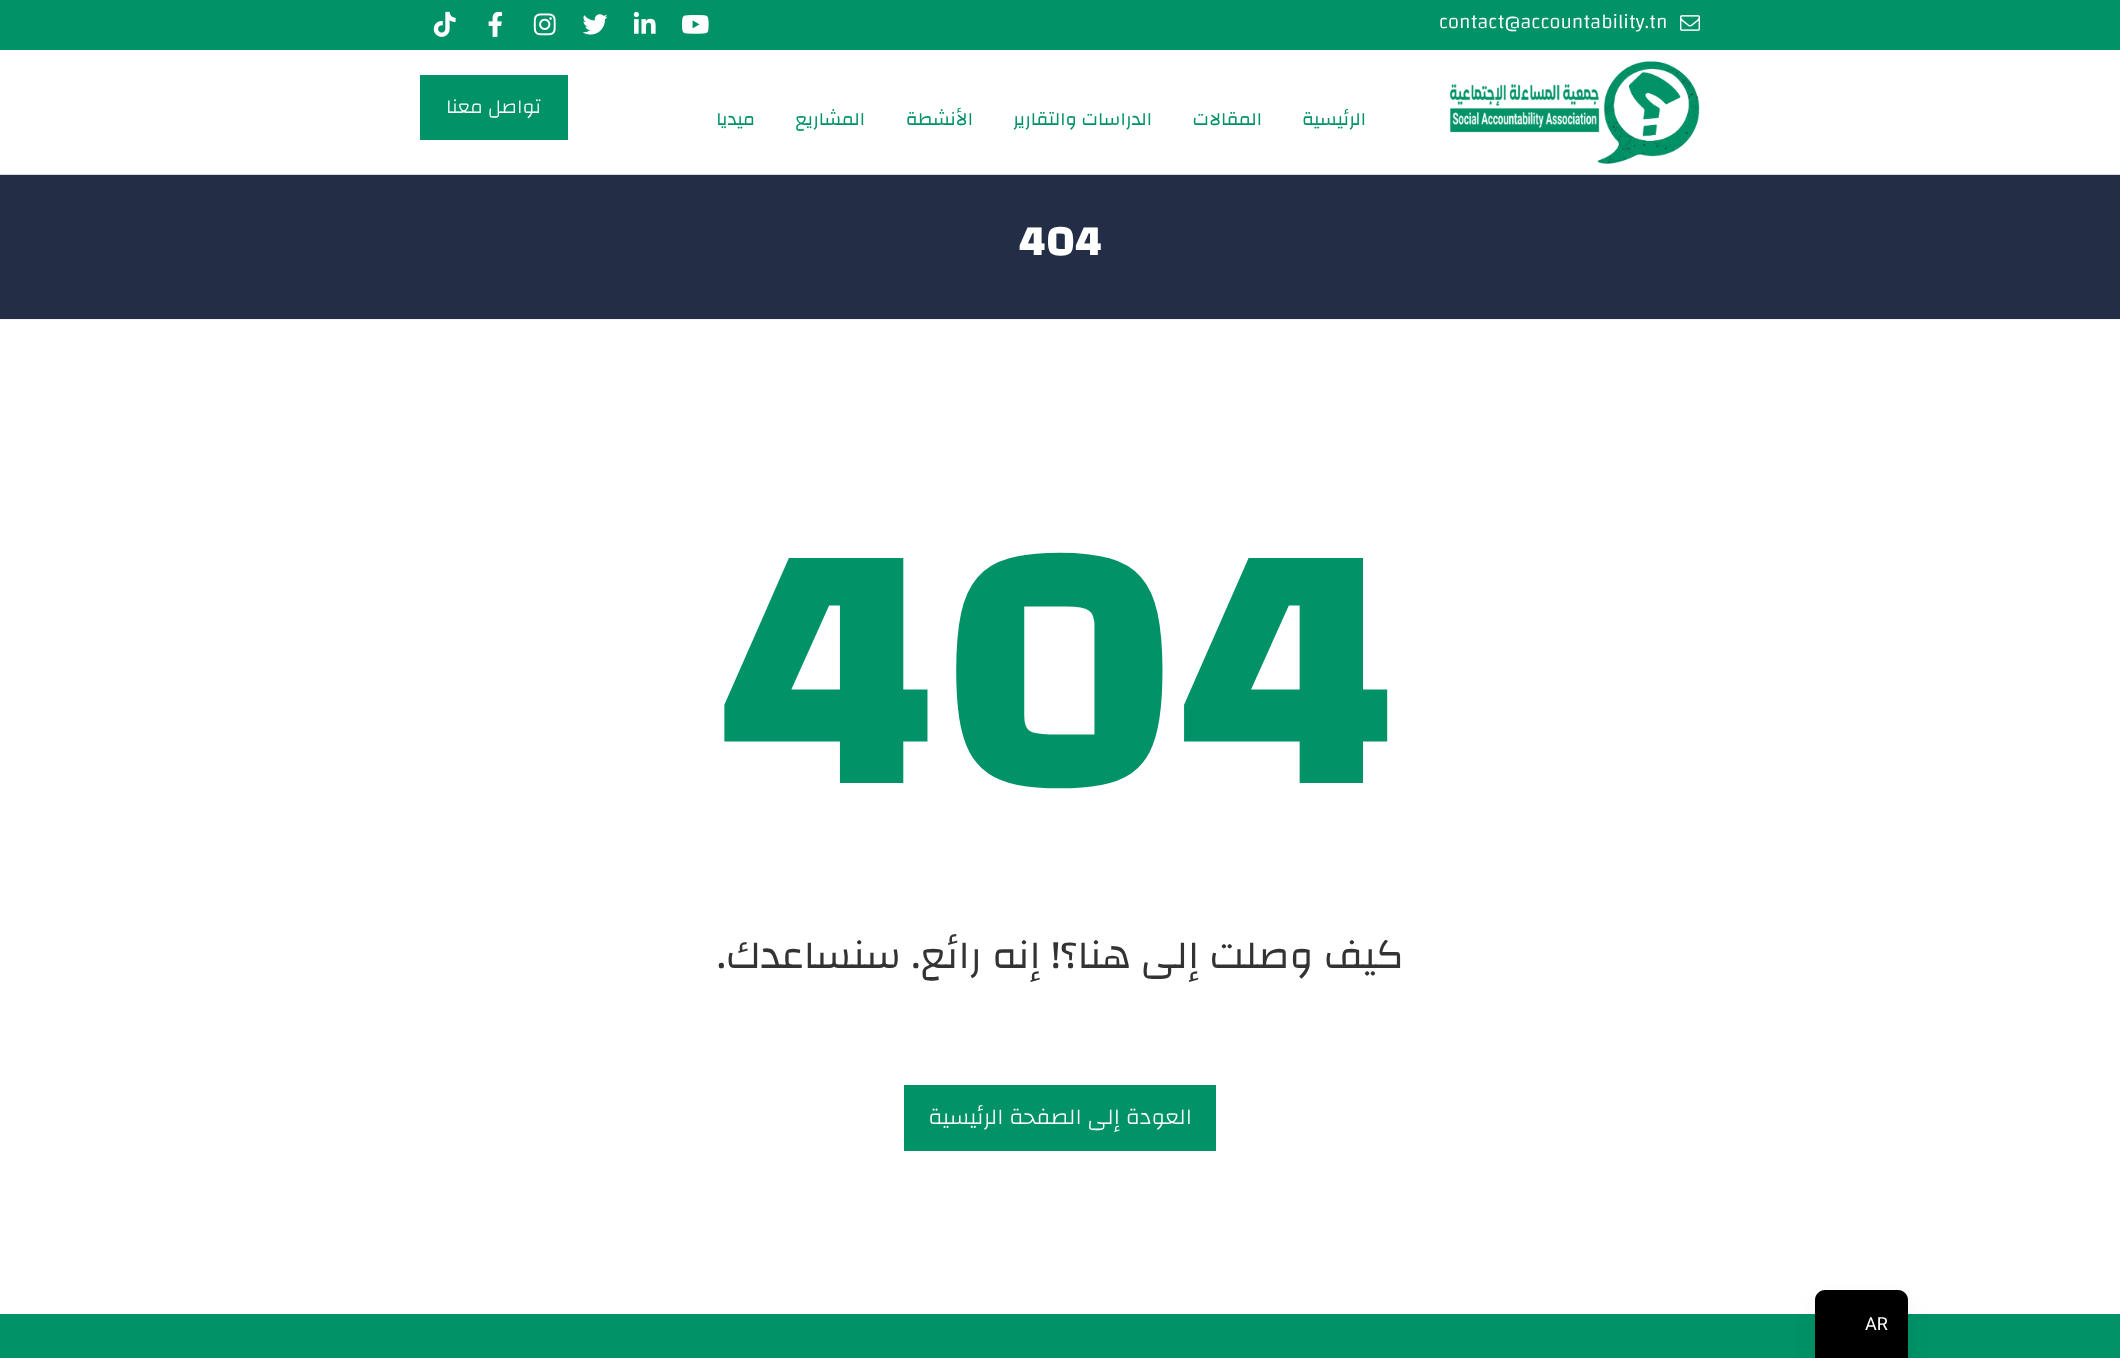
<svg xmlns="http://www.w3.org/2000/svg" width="2120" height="1358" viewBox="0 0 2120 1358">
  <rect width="100%" height="100%" fill="rgb(255,255,255)"/>
  <rect x="0" y="0" width="2120" height="50" fill="rgb(1,146,103)"/>
  <image x="1680" y="15" width="20" height="16" href="pic1.png"/>
  <text x="1439" y="28" font-family="Changa" font-size="20" font-weight="300" fill="rgb(255,255,255)">contact@accountability.tn</text>
  <image x="682" y="15" width="27" height="19" href="pic2.png"/>
  <image x="633" y="11" width="23" height="23" href="pic3.png"/>
  <image x="582" y="14" width="26" height="21" href="pic4.png"/>
  <image x="533" y="13" width="23" height="23" href="pic5.png"/>
  <image x="488" y="11" width="14" height="26" href="pic6.png"/>
  <image x="433" y="11" width="23" height="26" href="pic7.png"/>
  <rect x="0" y="174" width="2120" height="1" fill="rgb(217,217,217)"/>
  <image x="1449" y="61" width="251" height="103" href="pic8.png"/>
  <g font-family="Changa" font-size="18.75" direction="rtl" fill="rgb(1,146,103)">
    <text x="1366" y="125">الرئيسية</text>
    <text x="1262" y="125">المقالات</text>
    <text x="1152" y="125">الدراسات والتقارير</text>
    <text x="973" y="125">الأنشطة</text>
    <text x="865" y="125">المشاريع</text>
    <text x="755" y="125">ميديا</text>
  </g>
  <rect x="420" y="75" width="148" height="65" fill="rgb(1,146,103)"/>
  <text x="541" y="113" font-family="Changa" font-size="20" font-weight="300" direction="rtl" fill="rgb(255,255,255)">تواصل معنا</text>
  <rect x="0" y="175" width="2120" height="144" fill="rgb(35,46,70)"/>
  <rect x="0" y="319" width="2120" height="1" fill="rgb(244,244,244)"/>
  <text x="1019" y="255" font-family="Changa" font-size="44" font-weight="bold" fill="rgb(255,255,255)">404</text>
  <text x="719" y="783" font-family="Changa" font-size="360" font-weight="bold" fill="rgb(1,146,103)">404</text>
  <text x="1404" y="968" font-family="Changa" font-size="40" direction="rtl" fill="rgb(51,51,51)">كيف وصلت إلى هنا؟! إنه رائع. سنساعدك.</text>
  <rect x="904" y="1085" width="312" height="66" fill="rgb(1,146,103)"/>
  <text x="1192" y="1124" font-family="Changa" font-size="22.5" font-weight="300" direction="rtl" fill="rgb(255,255,255)">العودة إلى الصفحة الرئيسية</text>
  <rect x="0" y="1314" width="2120" height="44" fill="rgb(1,146,103)"/>
  <rect x="1815" y="1303" width="93" height="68" rx="10" fill="rgba(0,0,0,0.05)" filter="blur(12.5px)"/>
  <path d="M1825 1290H1898C1903.5 1290 1908 1294.5 1908 1300V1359H1815V1300C1815 1294.5 1819.5 1290 1825 1290Z" fill="rgb(0,0,0)"/>
  <text x="1865" y="1330" font-family="Roboto" font-size="18" fill="rgb(255,255,255)">AR</text>
</svg>
